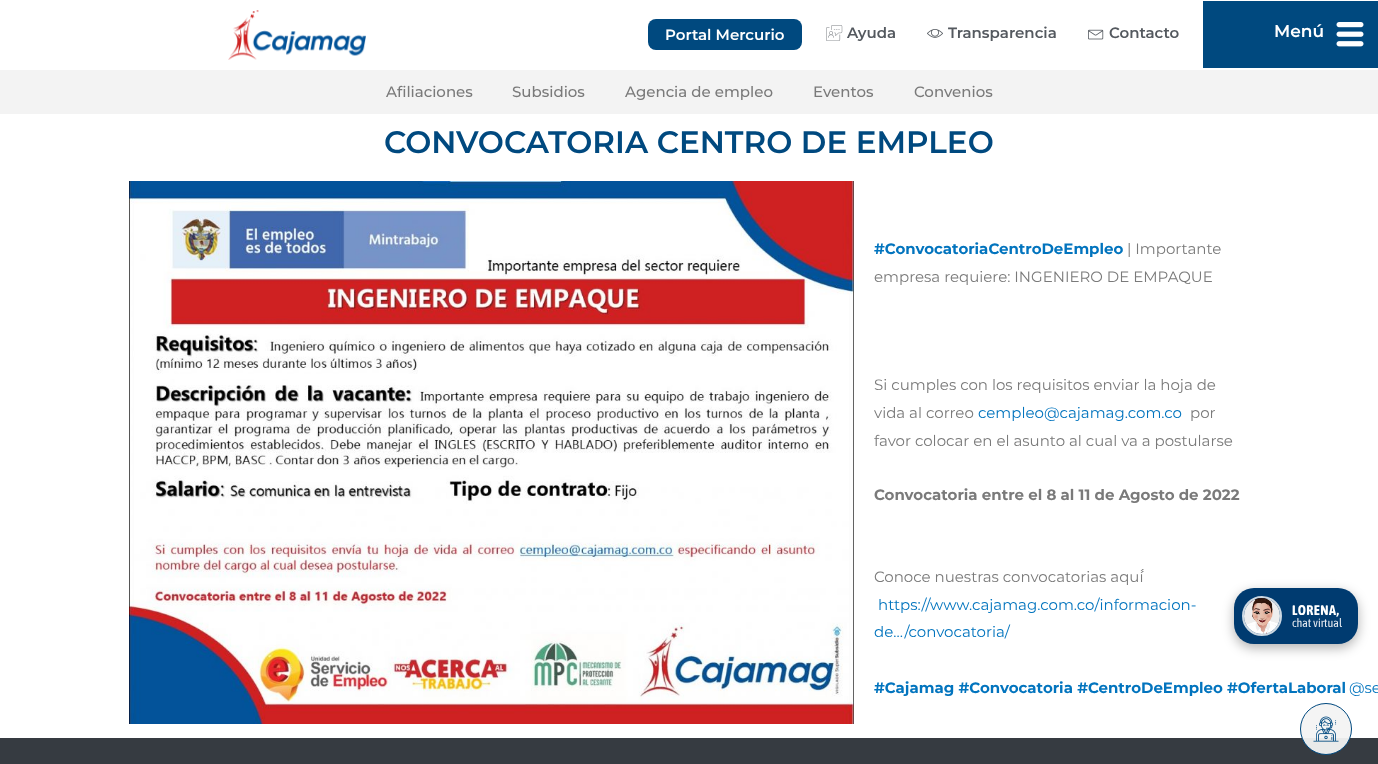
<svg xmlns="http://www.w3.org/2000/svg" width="1378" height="764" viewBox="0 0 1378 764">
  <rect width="100%" height="100%" fill="rgb(255,255,255)"/>
  <image x="228" y="10" width="138" height="50" href="pic1.png"/>
  <rect x="648" y="19" width="154" height="31" rx="8" fill="rgb(0,73,127)"/>
  <text x="665" y="40" font-family="Montserrat" font-size="15" font-weight="600" fill="rgb(255,255,255)">Portal Mercurio</text>
  <image x="826" y="25" width="17" height="16" href="pic2.png"/>
  <text x="847" y="38" font-family="Montserrat" font-size="15" font-weight="600" fill="rgb(84,89,95)">Ayuda</text>
  <image x="927" y="29" width="16" height="9" href="pic3.png"/>
  <text x="948" y="38" font-family="Montserrat" font-size="15" font-weight="600" fill="rgb(84,89,95)">Transparencia</text>
  <image x="1088" y="29" width="16" height="11" href="pic4.png"/>
  <text x="1109" y="38" font-family="Montserrat" font-size="15" font-weight="600" fill="rgb(84,89,95)">Contacto</text>
  <rect x="1203" y="1" width="175" height="67" fill="rgb(0,73,127)"/>
  <text x="1274" y="37" font-family="Montserrat" font-size="17" font-weight="600" fill="rgb(255,255,255)">Menú</text>
  <image x="1336" y="22" width="28" height="25" href="pic5.png"/>
  <rect x="0" y="70" width="1378" height="44" fill="rgb(243,243,243)"/>
  <g font-family="Montserrat" font-size="15" font-weight="500" fill="rgb(122,122,122)">
    <text x="386" y="97">Afiliaciones</text>
    <text x="512" y="97">Subsidios</text>
    <text x="625" y="97">Agencia de empleo</text>
    <text x="813" y="97">Eventos</text>
    <text x="914" y="97">Convenios</text>
  </g>
  <text x="384" y="153" font-family="Montserrat" font-size="31" font-weight="600" fill="rgb(0,73,127)">CONVOCATORIA CENTRO DE EMPLEO</text>
  <image x="129" y="181" width="725" height="543" href="pic6.png"/>
  <text x="874" y="254" font-family="Montserrat" font-size="15" font-weight="bold" fill="rgb(2,116,190)">#ConvocatoriaCentroDeEmpleo</text>
  <g font-family="Montserrat" font-size="15" fill="rgb(122,122,122)">
    <text x="1127" y="254">| Importante</text>
    <text x="874" y="282">empresa requiere: INGENIERO DE EMPAQUE</text>
    <text>
      <tspan x="874" y="390">Si cumples con los requisitos enviar la hoja de</tspan>
      <tspan x="874" y="418">vida al correo</tspan>
    </text>
  </g>
  <text x="978" y="418" font-family="Montserrat" font-size="15" fill="rgb(2,116,190)">cempleo@cajamag.com.co</text>
  <g font-family="Montserrat" font-size="15" fill="rgb(122,122,122)">
    <text x="1190" y="418">por</text>
    <text x="874" y="446">favor colocar en el asunto al cual va a postularse</text>
  </g>
  <text x="874" y="500" font-family="Montserrat" font-size="15" font-weight="bold" fill="rgb(122,122,122)">Convocatoria entre el 8 al 11 de Agosto de 2022</text>
  <text x="874" y="582" font-family="Montserrat" font-size="15" fill="rgb(122,122,122)">Conoce nuestras convocatorias aquí́</text>
  <g font-family="Montserrat" font-size="15" fill="rgb(2,116,190)">
    <text x="878" y="610">https://www.cajamag.com.co/informacion-</text>
    <text x="874" y="637">de…/convocatoria/</text>
  </g>
  <text x="874" y="693" font-family="Montserrat" font-size="15" font-weight="bold" fill="rgb(2,116,190)">#Cajamag #Convocatoria #CentroDeEmpleo #OfertaLaboral</text>
  <text x="1349" y="693" font-family="Montserrat" font-size="15" fill="rgb(2,116,190)">@se</text>
  <rect x="0" y="738" width="1378" height="26" fill="rgb(54,59,65)"/>
  <rect x="1234" y="592" width="124" height="56" rx="20" fill="rgba(0,0,0,0.3)" filter="blur(6px)"/>
  <rect x="1234" y="588" width="124" height="56" rx="20" fill="rgb(0,59,112)"/>
  <circle cx="1262" cy="616" r="19" fill="none" stroke="rgb(204,216,226)" stroke-width="2"/>
  <image x="1244" y="598" width="36" height="36" href="pic7.png"/>
  <text x="1292" y="615" font-family="Asap Condensed" font-size="14" font-weight="bold" letter-spacing="0.5" fill="rgb(255,255,255)">LORENA,</text>
  <text x="1292" y="627" font-family="Asap Condensed" font-size="12" fill="rgb(230,235,241)">chat virtual</text>
  <circle cx="1326" cy="729" r="25.5" fill="rgba(243,243,243,0.95)" stroke="rgb(0,73,127)"/>
  <image x="1313" y="716" width="26" height="26" href="pic8.png"/>
</svg>
